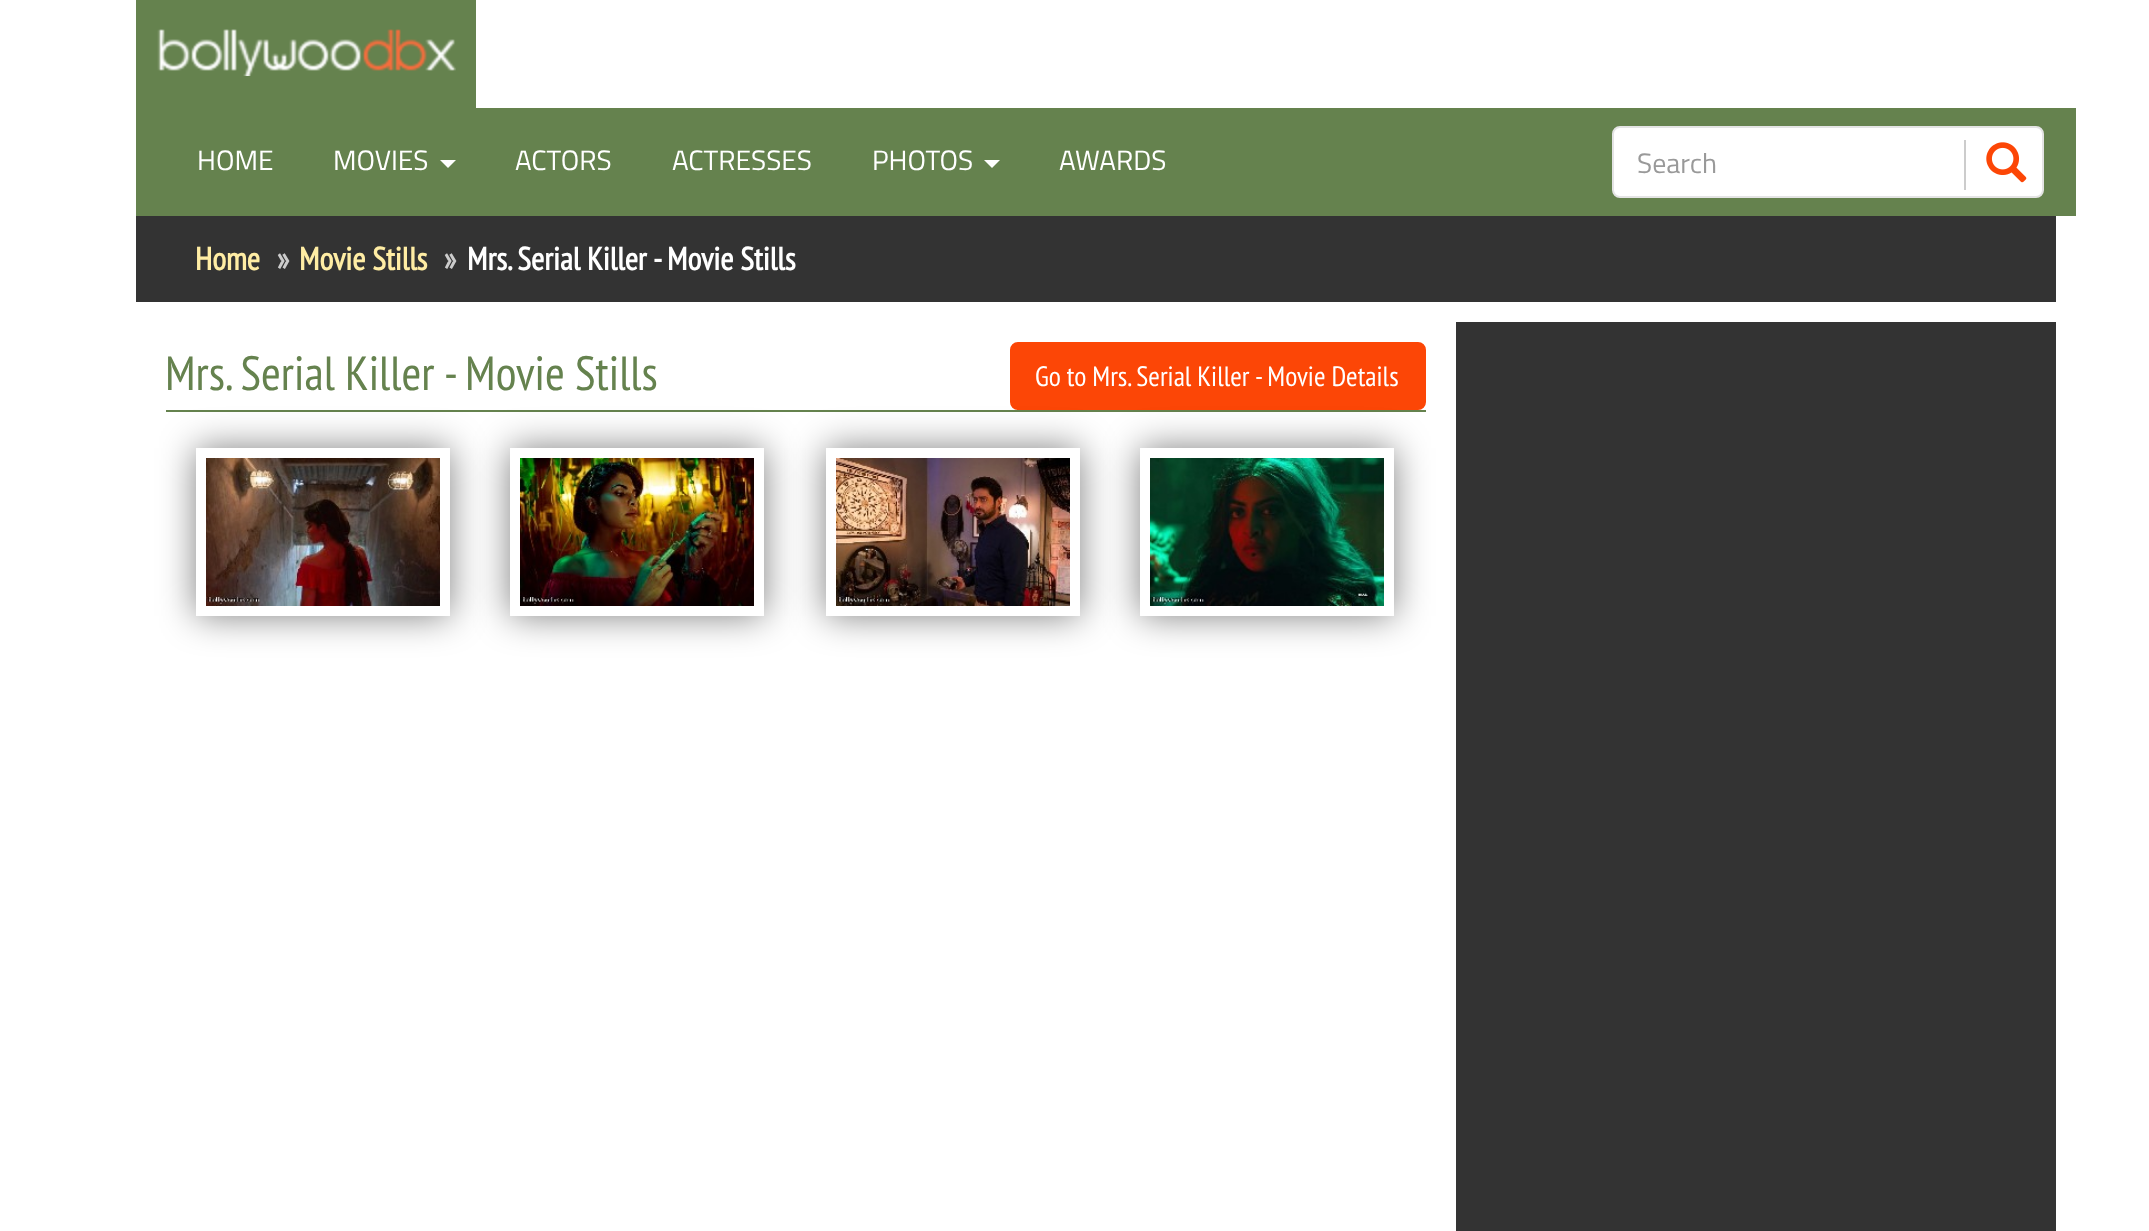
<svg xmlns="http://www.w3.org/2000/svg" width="2149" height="1231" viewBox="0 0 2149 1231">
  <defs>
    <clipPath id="clip1"><path d="M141 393H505V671H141ZM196 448H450V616H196Z" clip-rule="evenodd"/></clipPath>
    <clipPath id="clip2"><path d="M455 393H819V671H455ZM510 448H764V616H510Z" clip-rule="evenodd"/></clipPath>
    <clipPath id="clip3"><path d="M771 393H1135V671H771ZM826 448H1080V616H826Z" clip-rule="evenodd"/></clipPath>
    <clipPath id="clip4"><path d="M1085 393H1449V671H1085ZM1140 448H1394V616H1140Z" clip-rule="evenodd"/></clipPath>
  </defs>
  <rect width="100%" height="100%" fill="rgb(255,255,255)"/>
  <rect x="136" y="0" width="340" height="108" fill="rgb(101,130,78)"/>
  <image x="157" y="29" width="299" height="47" href="pic1.png"/>
  <rect x="136" y="108" width="1940" height="108" fill="rgb(101,130,78)"/>
  <g font-family="Titillium Web" font-size="28" fill="rgb(255,255,255)">
    <text x="197" y="170">HOME</text>
    <text x="333" y="170">MOVIES</text>
  </g>
  <path d="M440 160H456L448 168Z" fill="rgb(255,255,255)"/>
  <g font-family="Titillium Web" font-size="28" fill="rgb(255,255,255)">
    <text x="515" y="170">ACTORS</text>
    <text x="672" y="170">ACTRESSES</text>
    <text x="872" y="170">PHOTOS</text>
  </g>
  <path d="M984 160H1000L992 168Z" fill="rgb(255,255,255)"/>
  <text x="1059" y="170" font-family="Titillium Web" font-size="28" fill="rgb(255,255,255)">AWARDS</text>
  <rect x="1613" y="127" width="430" height="70" rx="7" fill="rgb(255,255,255)" stroke="rgb(228,228,228)" stroke-width="2"/>
  <text x="1637" y="173" font-family="Titillium Web" font-size="28" fill="rgb(153,153,153)">Search</text>
  <rect x="1964" y="140" width="2" height="50" fill="rgb(204,204,204)"/>
  <image x="1986" y="142" width="41" height="41" href="pic2.png"/>
  <rect x="136" y="216" width="1920" height="86" fill="rgb(51,51,51)"/>
  <text x="195" y="270" font-family="PT Sans Narrow" font-size="32" font-weight="bold" fill="rgb(255,237,164)">Home</text>
  <text x="277" y="270" font-family="PT Sans Narrow" font-size="32" font-weight="bold" fill="rgb(204,204,204)">»</text>
  <text x="299" y="270" font-family="PT Sans Narrow" font-size="32" font-weight="bold" fill="rgb(255,237,164)">Movie Stills</text>
  <text x="444" y="270" font-family="PT Sans Narrow" font-size="32" font-weight="bold" fill="rgb(204,204,204)">»</text>
  <text x="467" y="270" font-family="PT Sans Narrow" font-size="32" font-weight="bold" fill="rgb(255,255,255)">Mrs. Serial Killer - Movie Stills</text>
  <rect x="166" y="410" width="1260" height="2" fill="rgb(101,130,78)"/>
  <text x="165" y="390" font-family="PT Sans Narrow" font-size="48" fill="rgb(101,130,78)">Mrs. Serial Killer - Movie Stills</text>
  <rect x="1011" y="343" width="414" height="66" rx="7" fill="rgb(252,70,6)" stroke="rgb(252,70,6)" stroke-width="2"/>
  <g font-family="PT Sans Narrow" font-size="28" fill="rgb(255,255,255)">
    <text x="1035" y="386">Go to Mrs. Serial Killer</text>
    <text x="1255" y="386">- Movie Details</text>
  </g>
  <g clip-path="url(#clip1)">
    <rect x="196" y="448" width="254" height="168" fill="rgba(0,0,0,0.5)" filter="blur(18px)"/>
  </g>
  <image x="206" y="458" width="234" height="148" href="pic3.png"/>
  <g clip-path="url(#clip2)">
    <rect x="510" y="448" width="254" height="168" fill="rgba(0,0,0,0.5)" filter="blur(18px)"/>
  </g>
  <image x="520" y="458" width="234" height="148" href="pic4.png"/>
  <g clip-path="url(#clip3)">
    <rect x="826" y="448" width="254" height="168" fill="rgba(0,0,0,0.5)" filter="blur(18px)"/>
  </g>
  <image x="836" y="458" width="234" height="148" href="pic5.png"/>
  <g clip-path="url(#clip4)">
    <rect x="1140" y="448" width="254" height="168" fill="rgba(0,0,0,0.5)" filter="blur(18px)"/>
  </g>
  <image x="1150" y="458" width="234" height="148" href="pic6.png"/>
  <rect x="1456" y="322" width="600" height="909" fill="rgb(51,51,51)"/>
</svg>
